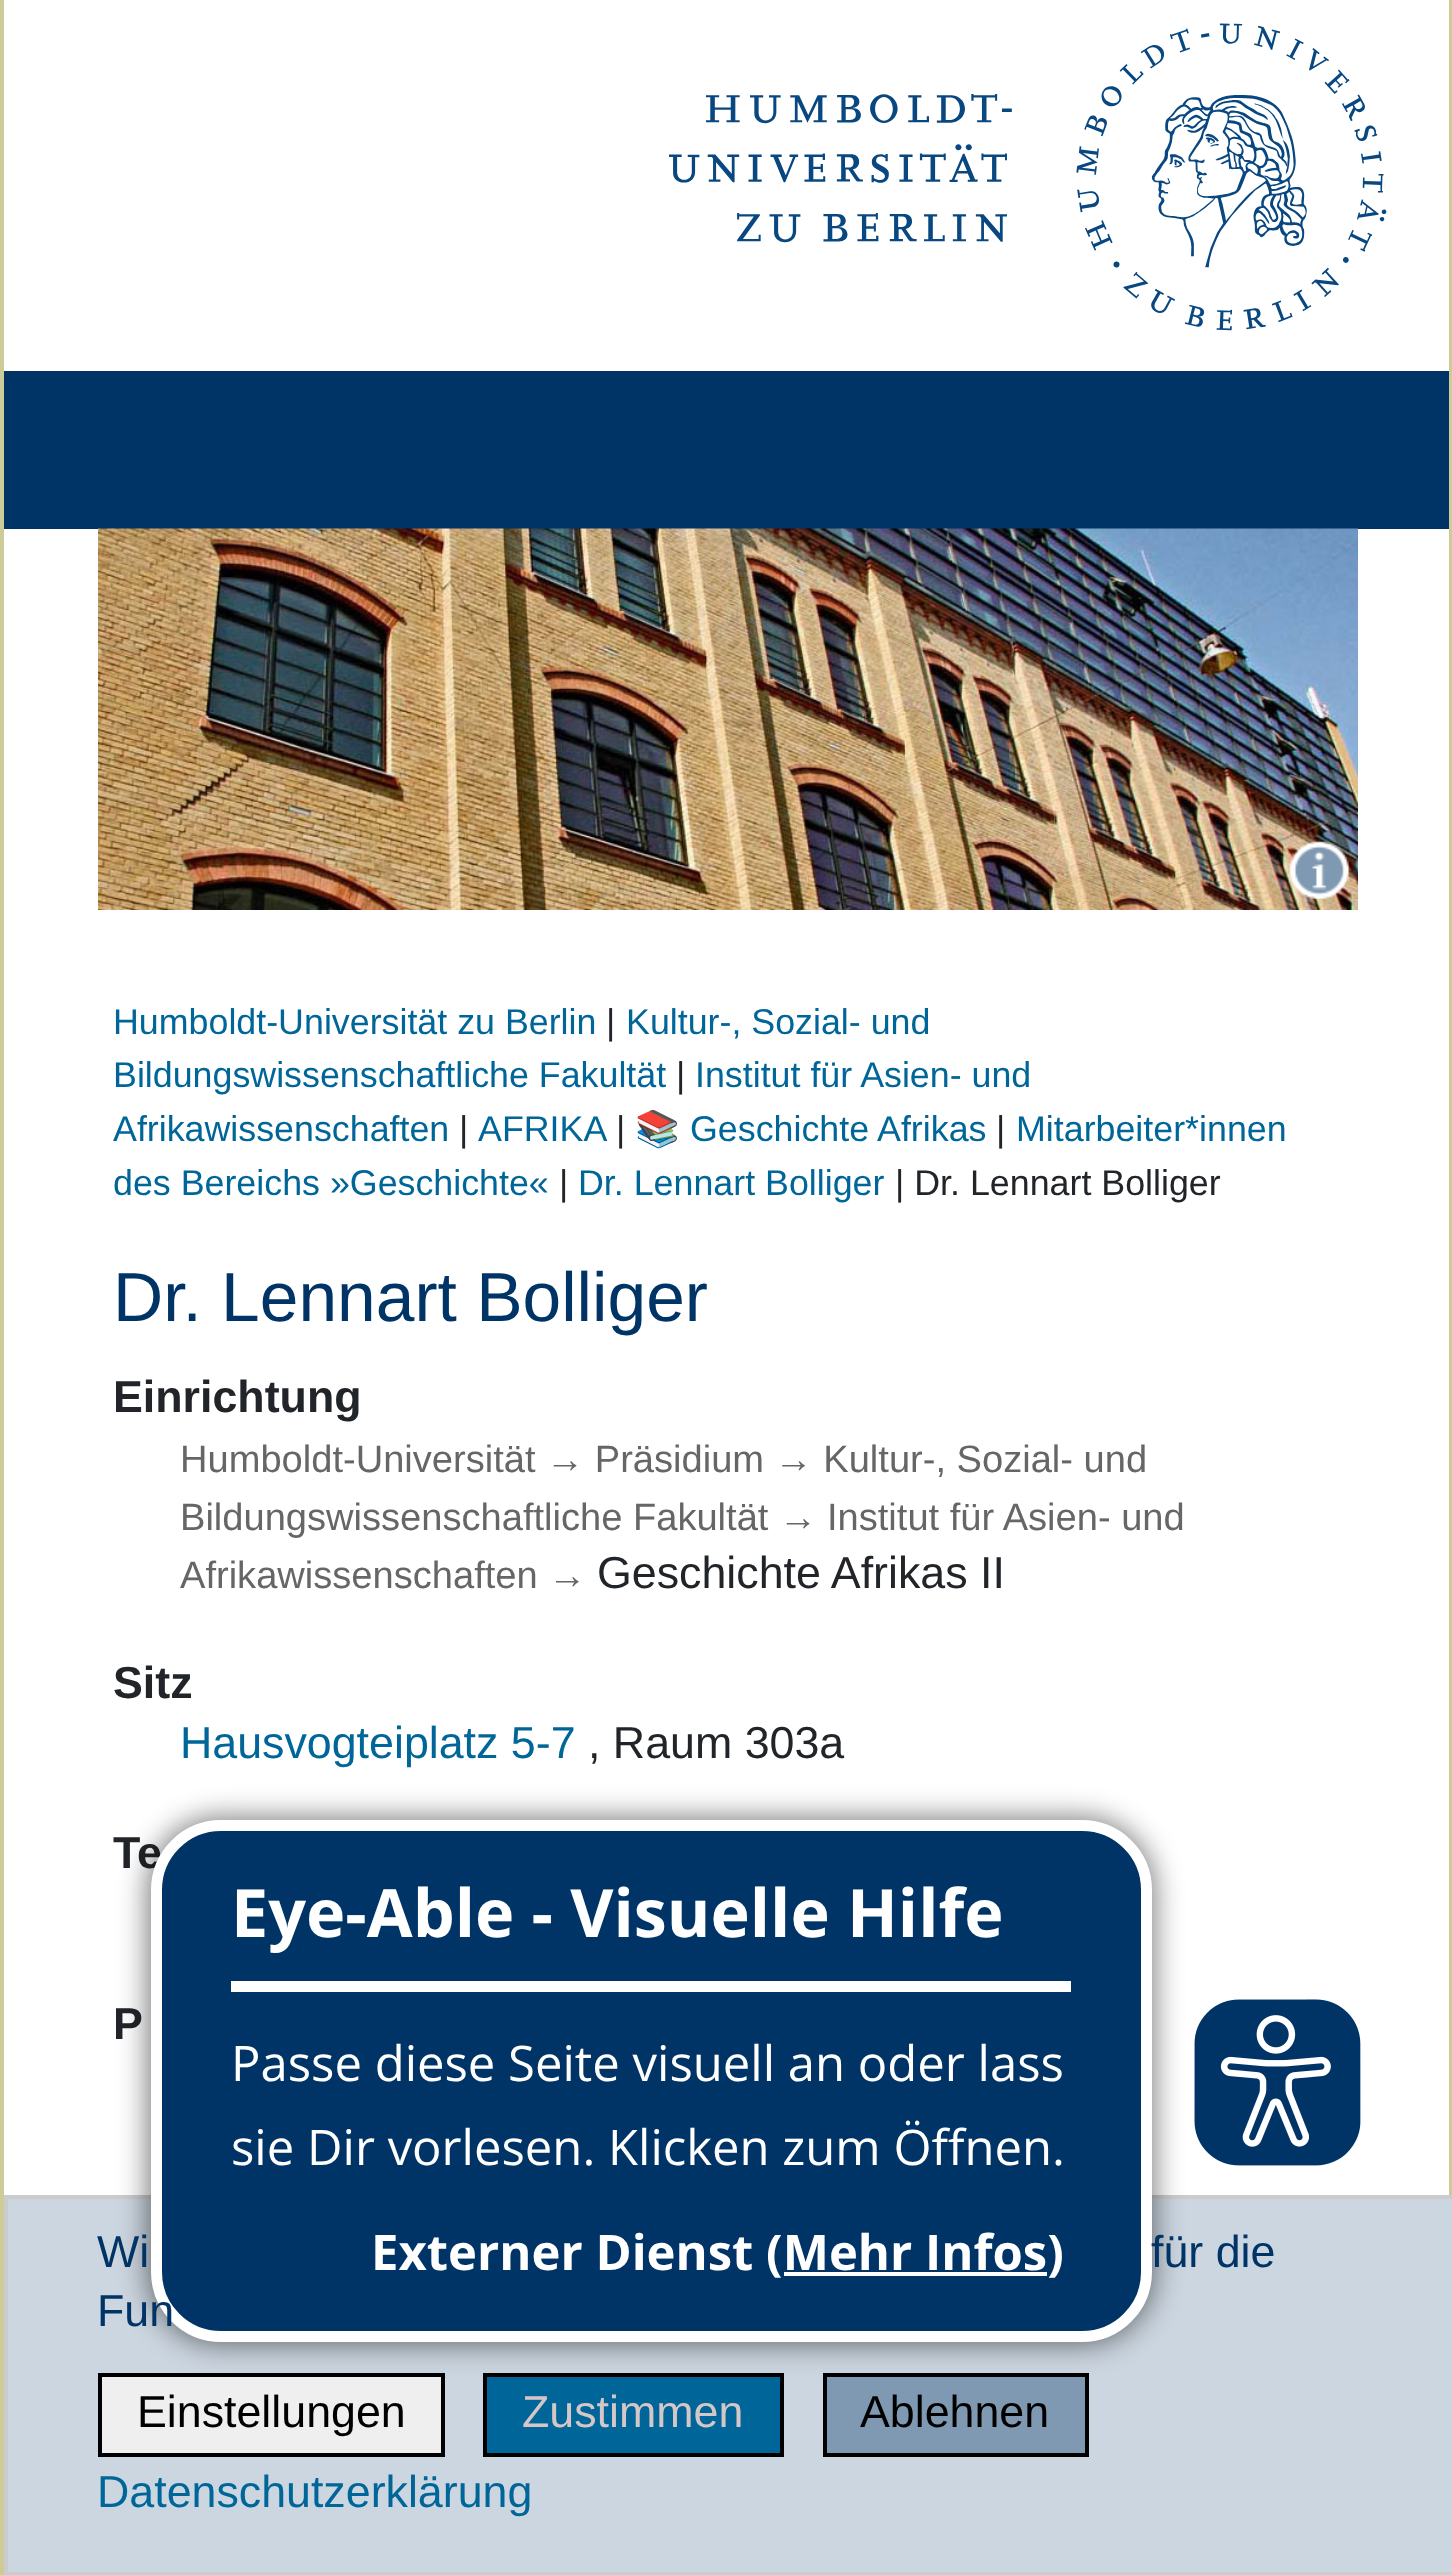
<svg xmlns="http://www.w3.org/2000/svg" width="1452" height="2575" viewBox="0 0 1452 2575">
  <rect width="100%" height="100%" fill="rgb(255,255,255)"/>
  <image x="669" y="23" width="718" height="308" href="pic1.png"/>
  <rect x="4" y="371" width="1445" height="158" fill="rgb(0,51,102)"/>
  <image x="98" y="528" width="1260" height="382" href="pic2.png"/>
  <image x="1289" y="841" width="60" height="59" href="pic3.png"/>
  <rect x="1449" y="0" width="3" height="2195" fill="rgb(204,204,153)"/>
  <rect x="0" y="0" width="4" height="2575" fill="rgb(204,204,153)"/>
  <text x="113" y="1034" font-family="Liberation Sans" font-size="35.8" fill="rgb(0,102,153)">Humboldt-Universität zu Berlin</text>
  <text x="606" y="1034" font-family="Liberation Sans" font-size="35.8" fill="rgb(33,37,41)">|</text>
  <g font-family="Liberation Sans" font-size="35.8" fill="rgb(0,102,153)">
    <text x="626" y="1034">Kultur-, Sozial- und</text>
    <text x="113" y="1087">Bildungswissenschaftliche Fakultät</text>
  </g>
  <text x="676" y="1087" font-family="Liberation Sans" font-size="35.8" fill="rgb(33,37,41)">|</text>
  <g font-family="Liberation Sans" font-size="35.8" fill="rgb(0,102,153)">
    <text x="695" y="1087">Institut für Asien- und</text>
    <text x="113" y="1141">Afrikawissenschaften</text>
  </g>
  <text x="459" y="1141" font-family="Liberation Sans" font-size="35.8" fill="rgb(33,37,41)">|</text>
  <text x="478" y="1141" font-family="Liberation Sans" font-size="35.8" fill="rgb(0,102,153)">AFRIKA</text>
  <text x="616" y="1141" font-family="Liberation Sans" font-size="35.8" fill="rgb(33,37,41)">|</text>
  <text x="635" y="1141" font-family="Noto Color Emoji" font-size="35.8" fill="rgb(0,102,153)">📚</text>
  <text x="690" y="1141" font-family="Liberation Sans" font-size="35.8" fill="rgb(0,102,153)">Geschichte Afrikas</text>
  <text x="996" y="1141" font-family="Liberation Sans" font-size="35.8" fill="rgb(33,37,41)">|</text>
  <g font-family="Liberation Sans" font-size="35.8" fill="rgb(0,102,153)">
    <text x="1016" y="1141">Mitarbeiter*innen</text>
    <text x="113" y="1195">des Bereichs »Geschichte«</text>
  </g>
  <text x="559" y="1195" font-family="Liberation Sans" font-size="35.8" fill="rgb(33,37,41)">|</text>
  <text x="578" y="1195" font-family="Liberation Sans" font-size="35.8" fill="rgb(0,102,153)">Dr. Lennart Bolliger</text>
  <text x="895" y="1195" font-family="Liberation Sans" font-size="35.8" fill="rgb(33,37,41)">| Dr. Lennart Bolliger</text>
  <text x="113" y="1321" font-family="Liberation Sans" font-size="69.5" fill="rgb(0,51,102)">Dr. Lennart Bolliger</text>
  <text x="113" y="1412" font-family="Liberation Sans" font-size="44.75" font-weight="bold" fill="rgb(33,37,41)">Einrichtung</text>
  <g font-family="Liberation Sans" font-size="38.1" fill="rgb(102,102,102)">
    <text>
      <tspan x="180" y="1472">Humboldt-Universität → Präsidium → Kultur-, Sozial- und</tspan>
      <tspan x="180" y="1530">Bildungswissenschaftliche Fakultät →</tspan>
    </text>
    <text x="827" y="1530">Institut für Asien- und</text>
    <text x="180" y="1588">Afrikawissenschaften →</text>
  </g>
  <text x="597" y="1588" font-family="Liberation Sans" font-size="44.75" fill="rgb(33,37,41)">Geschichte Afrikas II</text>
  <text x="113" y="1698" font-family="Liberation Sans" font-size="44.75" font-weight="bold" fill="rgb(33,37,41)">Sitz</text>
  <text x="180" y="1758" font-family="Liberation Sans" font-size="44.75" fill="rgb(0,102,153)">Hausvogteiplatz 5-7</text>
  <text x="588" y="1758" font-family="Liberation Sans" font-size="44.75" fill="rgb(33,37,41)">, Raum 303a</text>
  <g font-family="Liberation Sans" font-size="44.75" font-weight="bold" fill="rgb(33,37,41)">
    <text x="113" y="1868">Te</text>
    <text x="113" y="2039">P</text>
  </g>
  <rect x="6" y="2197" width="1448" height="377" fill="rgb(204,214,224)" stroke="rgb(204,204,204)" stroke-width="4"/>
  <rect x="100" y="2375" width="343" height="80" fill="rgb(239,239,239)" stroke="rgb(0,0,0)" stroke-width="4"/>
  <rect x="485" y="2375" width="297" height="80" fill="rgb(0,102,153)" stroke="rgb(0,0,0)" stroke-width="4"/>
  <rect x="825" y="2375" width="262" height="80" fill="rgb(128,153,178)" stroke="rgb(0,0,0)" stroke-width="4"/>
  <rect x="147" y="1817" width="1008" height="528" rx="74" fill="rgba(0,0,0,0.5)" filter="blur(14px)"/>
  <rect x="156.5" y="1825.5" width="990" height="511" rx="64.5" fill="rgb(0,51,102)" stroke="rgb(255,255,255)" stroke-width="11"/>
  <rect x="231" y="1981" width="840" height="11" fill="rgb(255,255,255)"/>
  <text x="231" y="1937" font-family="Open Sans" font-size="66.5" font-weight="bold" fill="rgb(255,255,255)">Eye-Able - Visuelle Hilfe</text>
  <g font-family="Open Sans" font-size="49" fill="rgb(255,255,255)">
    <text>
      <tspan x="231" y="2081">Passe diese Seite visuell an oder lass</tspan>
      <tspan x="231" y="2165">sie Dir vorlesen. Klicken zum Öffnen.</tspan>
    </text>
  </g>
  <text x="371" y="2270" font-family="Open Sans" font-size="49" font-weight="bold" fill="rgb(255,255,255)">Externer Dienst (Mehr Infos)</text>
  <rect x="784" y="2272" width="263" height="4" fill="rgb(255,255,255)"/>
  <image x="1194" y="1999" width="167" height="167" href="pic4.png"/>
  <g font-family="Liberation Sans" font-size="44.75" fill="rgb(0,51,102)">
    <text x="97" y="2267">Wi</text>
    <text x="1151" y="2267">für die</text>
    <text x="97" y="2326">Fun</text>
  </g>
  <text x="137" y="2427" font-family="Liberation Sans" font-size="44.75" fill="rgb(0,0,0)">Einstellungen</text>
  <text x="522" y="2427" font-family="Liberation Sans" font-size="44.75" fill="rgb(213,199,199)">Zustimmen</text>
  <text x="860" y="2427" font-family="Liberation Sans" font-size="44.75" fill="rgb(0,0,0)">Ablehnen</text>
  <text x="97" y="2507" font-family="Liberation Sans" font-size="44.75" fill="rgb(0,102,153)">Datenschutzerklärung</text>
</svg>
